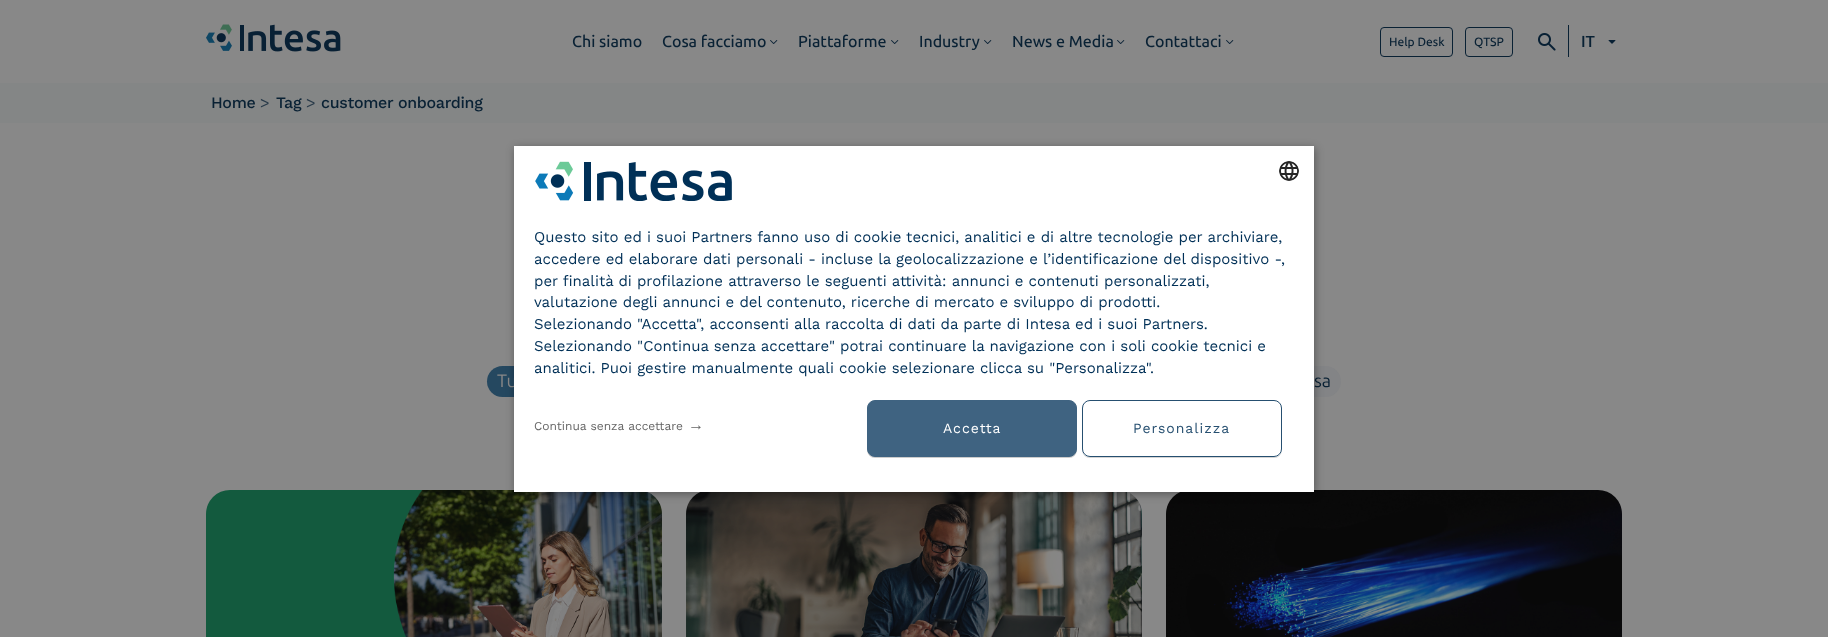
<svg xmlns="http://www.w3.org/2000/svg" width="1828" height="637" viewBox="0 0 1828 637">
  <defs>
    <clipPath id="clip1"><path d="M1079 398H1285V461H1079ZM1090 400H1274C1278.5 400 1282 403.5 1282 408V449C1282 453.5 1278.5 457 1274 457H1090C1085.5 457 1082 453.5 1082 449V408C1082 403.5 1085.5 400 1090 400Z" clip-rule="evenodd"/></clipPath>
  </defs>
  <rect width="100%" height="100%" fill="rgb(136,136,136)"/>
  <image x="206" y="24" width="135" height="28" href="pic1.png"/>
  <g font-family="Ubuntu Sans" font-size="16" font-weight="500" fill="rgb(9,33,52)">
    <text x="572" y="47">Chi siamo</text>
    <text x="662" y="47">Cosa facciamo</text>
  </g>
  <image x="770" y="40" width="8" height="4" href="pic2.png"/>
  <text x="798" y="47" font-family="Ubuntu Sans" font-size="16" font-weight="500" fill="rgb(9,33,52)">Piattaforme</text>
  <image x="891" y="40" width="8" height="4" href="pic2.png"/>
  <text x="919" y="47" font-family="Ubuntu Sans" font-size="16" font-weight="500" fill="rgb(9,33,52)">Industry</text>
  <image x="984" y="40" width="8" height="4" href="pic2.png"/>
  <text x="1012" y="47" font-family="Ubuntu Sans" font-size="16" font-weight="500" fill="rgb(9,33,52)">News e Media</text>
  <image x="1117" y="40" width="8" height="4" href="pic2.png"/>
  <text x="1145" y="47" font-family="Ubuntu Sans" font-size="16" font-weight="500" fill="rgb(9,33,52)">Contattaci</text>
  <image x="1226" y="40" width="8" height="4" href="pic2.png"/>
  <rect x="1380.5" y="27.5" width="72" height="29" rx="3.5" fill="none" stroke="rgb(9,33,52)"/>
  <text x="1389" y="46" font-family="Ubuntu Sans" font-size="12" font-weight="500" fill="rgb(9,33,52)">Help Desk</text>
  <rect x="1465.5" y="27.5" width="47" height="29" rx="3.5" fill="none" stroke="rgb(9,33,52)"/>
  <text x="1474" y="46" font-family="Ubuntu Sans" font-size="12" font-weight="500" fill="rgb(9,33,52)">QTSP</text>
  <image x="1538" y="33" width="18" height="18" href="pic3.png"/>
  <rect x="1568" y="25" width="1" height="32" fill="rgb(9,33,52)"/>
  <text x="1581" y="47" font-family="Ubuntu Sans" font-size="16" font-weight="600" fill="rgb(9,33,52)">IT</text>
  <image x="1608" y="40" width="8" height="4" href="pic4.png"/>
  <rect x="0" y="83" width="1828" height="40" fill="rgb(132,134,134)"/>
  <text x="211" y="108" font-family="Work Sans" font-size="16" font-weight="500" letter-spacing="-0.3" fill="rgb(9,33,52)">Home</text>
  <text x="260" y="108" font-family="Work Sans" font-size="16" fill="rgb(40,58,73)">&gt;</text>
  <text x="276" y="108" font-family="Work Sans" font-size="16" font-weight="500" letter-spacing="-0.3" fill="rgb(9,33,52)">Tag</text>
  <text x="306" y="108" font-family="Work Sans" font-size="16" fill="rgb(40,58,73)">&gt;</text>
  <text x="321" y="108" font-family="Work Sans" font-size="16" font-weight="500" letter-spacing="-0.3" fill="rgb(9,33,52)">customer onboarding</text>
  <rect x="487" y="366" width="142" height="31" rx="15.5" fill="rgb(37,72,96)"/>
  <text x="497" y="387" font-family="Ubuntu Sans" font-size="18" fill="rgb(136,136,136)">Tu</text>
  <rect x="1209" y="366" width="132" height="31" rx="15.5" fill="rgb(131,132,134)"/>
  <text x="1314" y="387" font-family="Ubuntu Sans" font-size="18" fill="rgb(9,33,52)">sa</text>
  <image x="206" y="490" width="456" height="147" href="pic5.png"/>
  <image x="686" y="492" width="456" height="145" href="pic6.png"/>
  <image x="1166" y="490" width="456" height="147" href="pic7.png"/>
  <rect x="515" y="148" width="800" height="346" fill="rgba(0,0,0,0.35)" filter="blur(4px)"/>
  <rect x="514" y="146" width="800" height="346" fill="rgb(255,255,255)"/>
  <image x="1279" y="161" width="20" height="20" href="pic8.png"/>
  <image x="535" y="161" width="197" height="40" href="pic9.png"/>
  <g font-family="Work Sans" font-size="15" fill="rgb(0,48,87)">
    <text>
      <tspan x="534" y="242">Questo sito ed i suoi Partners fanno uso di cookie tecnici, analitici e di altre tecnologie per archiviare,</tspan>
      <tspan x="534" y="264">accedere ed elaborare dati personali - incluse la geolocalizzazione e l’identificazione del dispositivo -,</tspan>
      <tspan x="534" y="286">per finalità di profilazione attraverso le seguenti attività: annunci e contenuti personalizzati,</tspan>
      <tspan x="534" y="307">valutazione degli annunci e del contenuto, ricerche di mercato e sviluppo di prodotti.</tspan>
      <tspan x="534" y="329">Selezionando "Accetta", acconsenti alla raccolta di dati da parte di Intesa ed i suoi Partners.</tspan>
      <tspan x="534" y="351">Selezionando "Continua senza accettare" potrai continuare la navigazione con i soli cookie tecnici e</tspan>
      <tspan x="534" y="373">analitici. Puoi gestire manualmente quali cookie selezionare clicca su "Personalizza".</tspan>
    </text>
  </g>
  <text x="534" y="430" font-family="Work Sans" font-size="12" fill="rgb(102,102,102)">Continua senza accettare</text>
  <text x="688" y="430" font-family="Liberation Serif" font-size="16" fill="rgb(102,102,102)">→</text>
  <rect x="867" y="401" width="210" height="57" rx="8" fill="rgba(0,0,0,0.2)" filter="blur(0.5px)"/>
  <rect x="867.5" y="400.5" width="209" height="56" rx="7.5" fill="rgb(63,99,129)" stroke="rgb(63,99,129)"/>
  <text x="943" y="433" font-family="Work Sans" font-size="14" letter-spacing="1" fill="rgb(255,255,255)">Accetta</text>
  <g clip-path="url(#clip1)">
    <rect x="1082" y="401" width="200" height="57" rx="8" fill="rgba(38,38,38,0.2)" filter="blur(0.5px)"/>
  </g>
  <rect x="1082.5" y="400.5" width="199" height="56" rx="7.5" fill="none" stroke="rgb(38,79,112)"/>
  <text x="1133" y="433" font-family="Work Sans" font-size="14" letter-spacing="1" fill="rgb(38,79,112)">Personalizza</text>
</svg>
